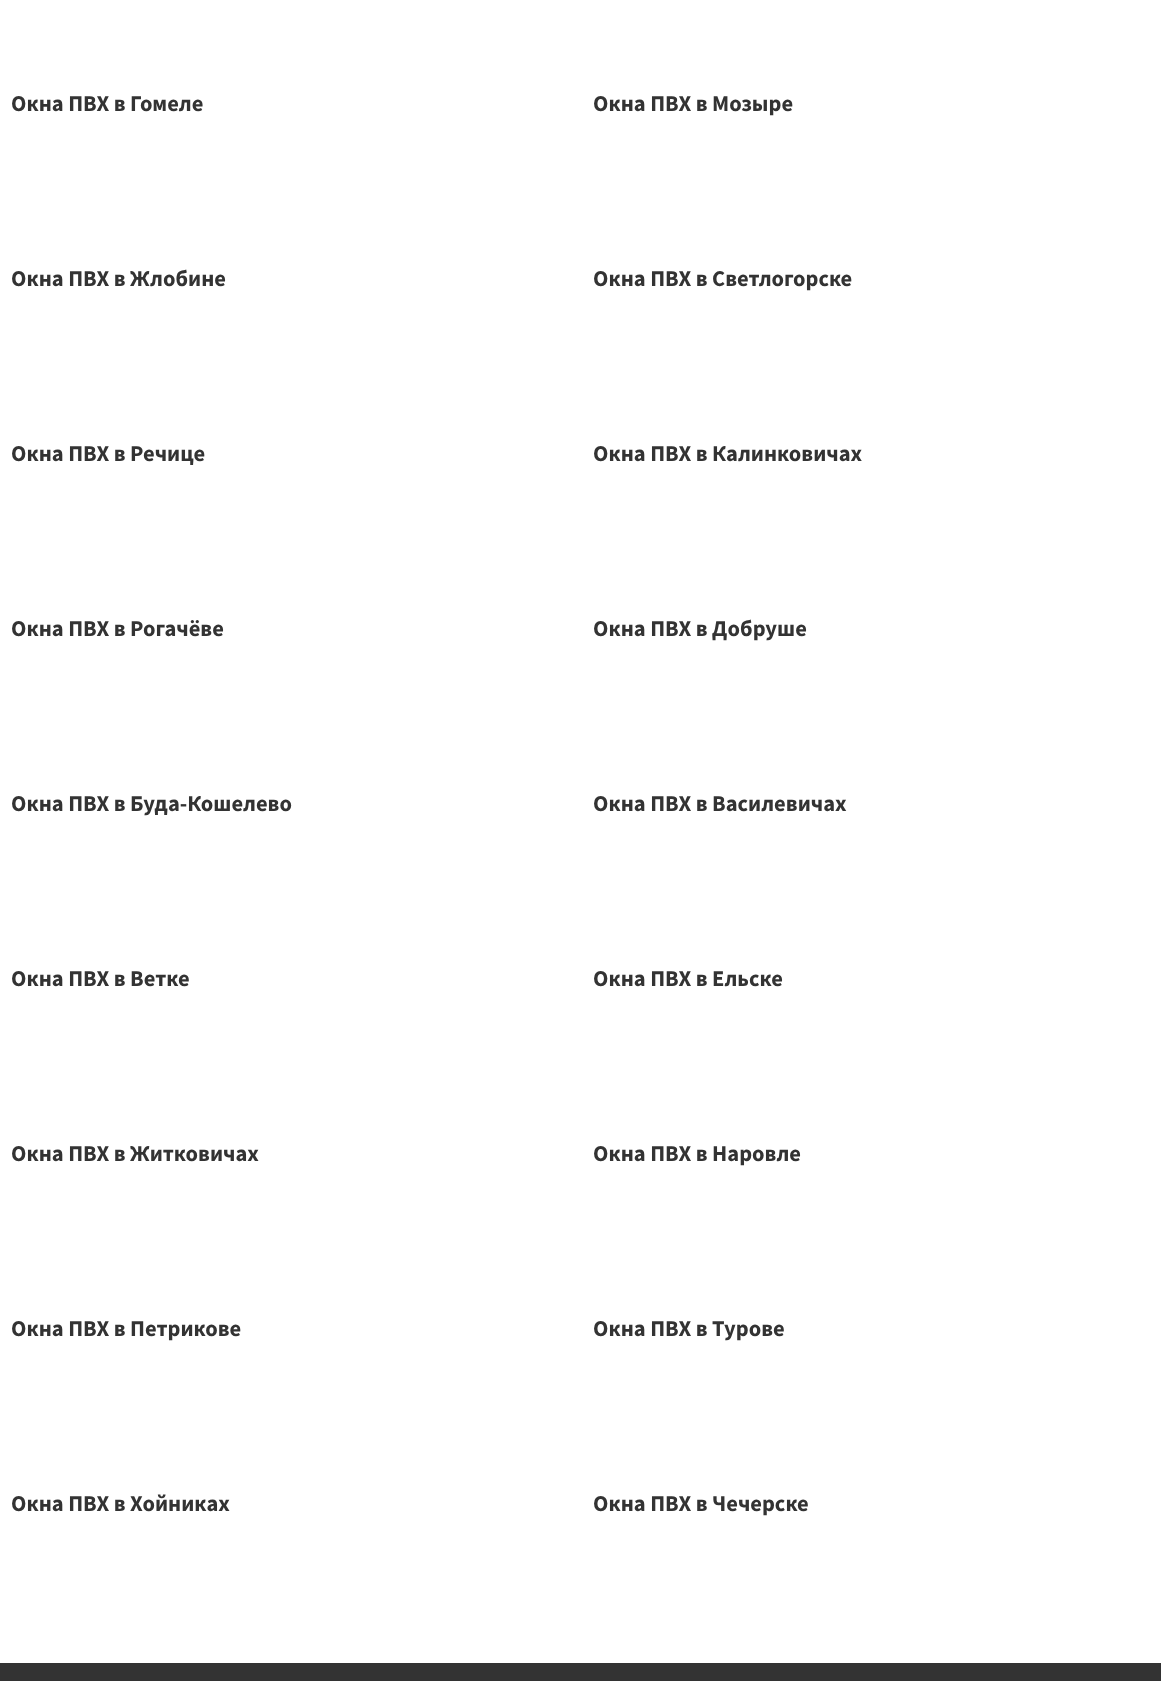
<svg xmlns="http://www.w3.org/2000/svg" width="1161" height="1681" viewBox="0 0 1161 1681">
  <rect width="100%" height="100%" fill="rgb(255,255,255)"/>
  <g font-family="Source Sans Pro" font-size="22.5" font-weight="bold" fill="rgb(51,51,51)">
    <text x="11" y="111">Окна ПВХ в Гомеле</text>
    <text x="593" y="111">Окна ПВХ в Мозыре</text>
    <text x="11" y="286">Окна ПВХ в Жлобине</text>
    <text x="593" y="286">Окна ПВХ в Светлогорске</text>
    <text x="11" y="461">Окна ПВХ в Речице</text>
    <text x="593" y="461">Окна ПВХ в Калинковичах</text>
    <text x="11" y="636">Окна ПВХ в Рогачёве</text>
    <text x="593" y="636">Окна ПВХ в Добруше</text>
    <text x="11" y="811">Окна ПВХ в Буда-Кошелево</text>
    <text x="593" y="811">Окна ПВХ в Василевичах</text>
    <text x="11" y="986">Окна ПВХ в Ветке</text>
    <text x="593" y="986">Окна ПВХ в Ельске</text>
    <text x="11" y="1161">Окна ПВХ в Житковичах</text>
    <text x="593" y="1161">Окна ПВХ в Наровле</text>
    <text x="11" y="1336">Окна ПВХ в Петрикове</text>
    <text x="593" y="1336">Окна ПВХ в Турове</text>
    <text x="11" y="1511">Окна ПВХ в Хойниках</text>
    <text x="593" y="1511">Окна ПВХ в Чечерске</text>
  </g>
  <rect x="0" y="1663" width="1161" height="18" fill="rgb(51,51,51)"/>
</svg>
